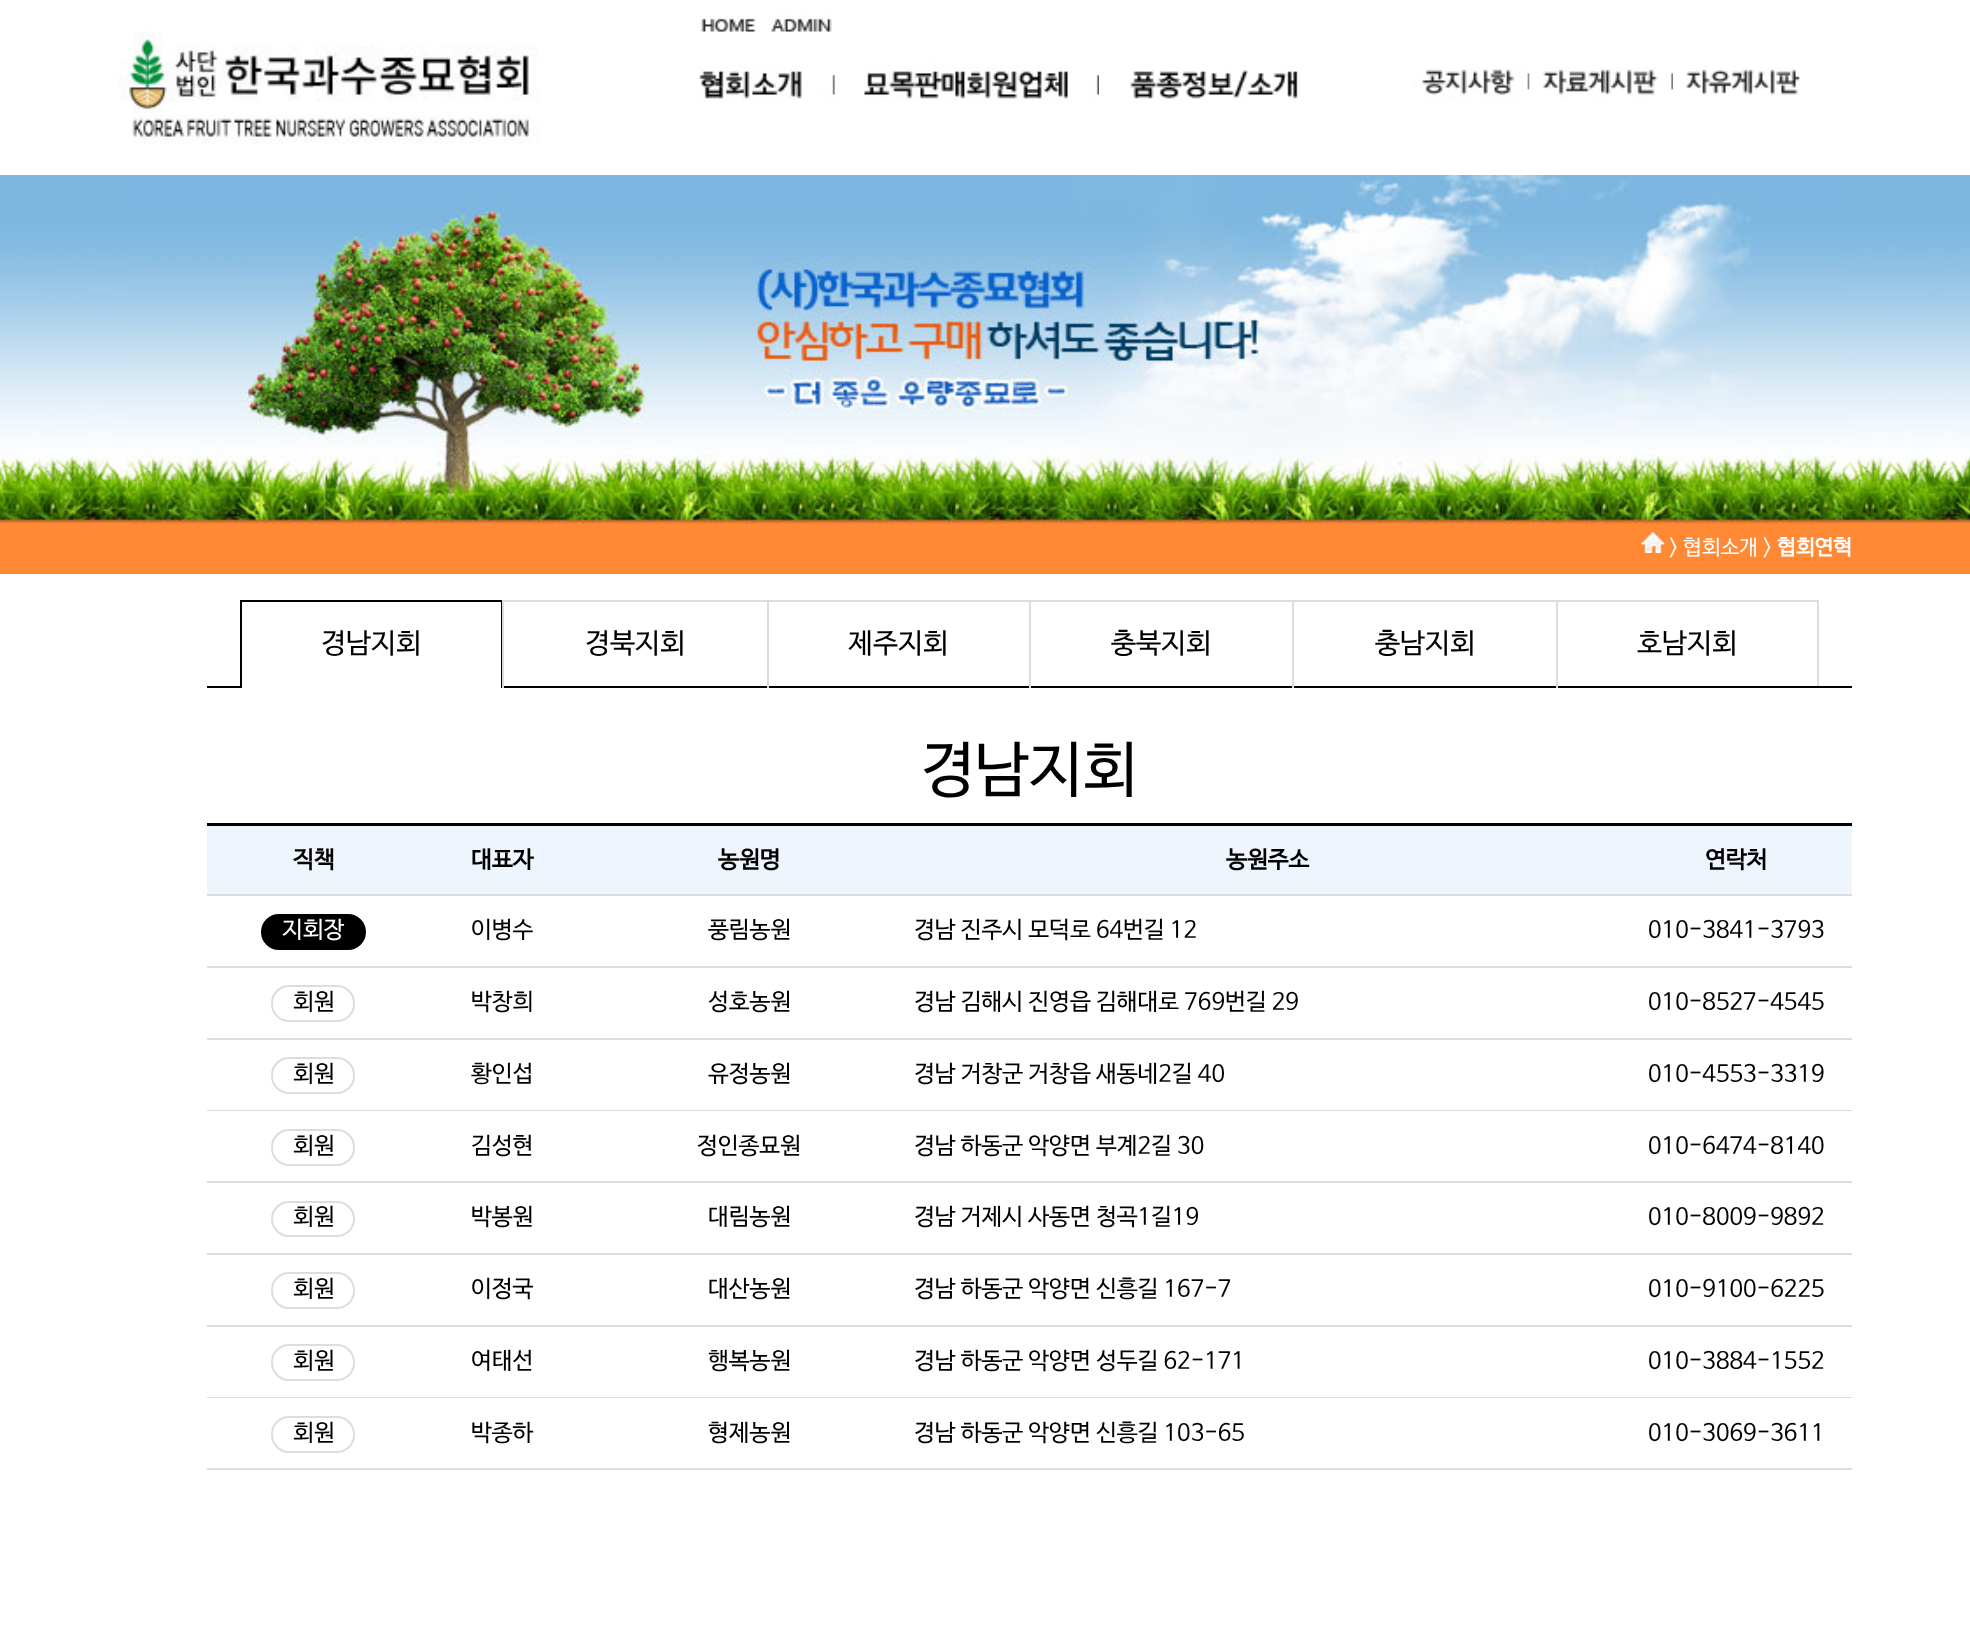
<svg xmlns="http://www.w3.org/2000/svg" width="1970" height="1637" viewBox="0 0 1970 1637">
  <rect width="100%" height="100%" fill="rgb(255,255,255)"/>
  <image x="119" y="31" width="420" height="113" href="pic1.png"/>
  <image x="699" y="16" width="58" height="17" href="pic2.png"/>
  <image x="769" y="14" width="63" height="18" href="pic3.png"/>
  <image x="699" y="65" width="136" height="36" href="pic4.png"/>
  <image x="834" y="63" width="265" height="38" href="pic5.png"/>
  <image x="1130" y="69" width="169" height="30" href="pic6.png"/>
  <image x="1414" y="67" width="116" height="34" href="pic7.png"/>
  <image x="1529" y="67" width="144" height="31" href="pic8.png"/>
  <image x="1686" y="69" width="114" height="26" href="pic9.png"/>
  <image x="0" y="175" width="1970" height="348" href="pic10.png"/>
  <rect x="0" y="523" width="1970" height="51" fill="rgb(255,137,53)"/>
  <image x="127" y="175" width="1716" height="349" href="pic11.png"/>
  <image x="1641" y="532" width="24" height="21" href="pic12.png"/>
  <text x="1669" y="554" font-family="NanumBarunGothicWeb" font-size="21" fill="rgb(255,255,255)">&gt; 협회소개 &gt;</text>
  <text x="1777" y="554" font-family="NanumBarunGothicWeb" font-size="21" font-weight="bold" fill="rgb(255,255,255)">협회연혁</text>
  <rect x="240" y="600" width="262" height="2" fill="rgb(0,0,0)"/>
  <rect x="501" y="600" width="1" height="88" fill="rgb(0,0,0)"/>
  <rect x="240" y="600" width="2" height="88" fill="rgb(0,0,0)"/>
  <text x="321" y="652" font-family="NanumBarunGothicWeb" font-size="28" fill="rgb(0,0,0)">경남지회</text>
  <rect x="502" y="600" width="1316" height="2" fill="rgb(221,221,221)"/>
  <rect x="502" y="686" width="1054" height="2" fill="rgb(0,0,0)"/>
  <rect x="502" y="600" width="2" height="88" fill="rgb(221,221,221)"/>
  <text x="585" y="652" font-family="NanumBarunGothicWeb" font-size="28" fill="rgb(0,0,0)">경북지회</text>
  <rect x="767" y="600" width="2" height="88" fill="rgb(221,221,221)"/>
  <text x="848" y="652" font-family="NanumBarunGothicWeb" font-size="28" fill="rgb(0,0,0)">제주지회</text>
  <rect x="1029" y="600" width="2" height="88" fill="rgb(221,221,221)"/>
  <text x="1111" y="652" font-family="NanumBarunGothicWeb" font-size="28" fill="rgb(0,0,0)">충북지회</text>
  <rect x="1292" y="600" width="2" height="88" fill="rgb(221,221,221)"/>
  <text x="1375" y="652" font-family="NanumBarunGothicWeb" font-size="28" fill="rgb(0,0,0)">충남지회</text>
  <rect x="1817" y="600" width="2" height="88" fill="rgb(221,221,221)"/>
  <rect x="1556" y="686" width="296" height="2" fill="rgb(0,0,0)"/>
  <rect x="1556" y="600" width="2" height="88" fill="rgb(221,221,221)"/>
  <text x="1637" y="652" font-family="NanumBarunGothicWeb" font-size="28" fill="rgb(0,0,0)">호남지회</text>
  <rect x="207" y="686" width="33" height="2" fill="rgb(0,0,0)"/>
  <text x="921" y="789" font-family="NanumBarunGothicWeb" font-size="60.5" fill="rgb(0,0,0)">경남지회</text>
  <rect x="207" y="823" width="1645" height="3" fill="rgb(0,0,0)"/>
  <rect x="207" y="826" width="1645" height="68" fill="rgb(238,245,252)"/>
  <rect x="207" y="894" width="1645" height="2" fill="rgb(221,221,221)"/>
  <g font-family="NanumBarunGothicWeb" font-size="23.3" font-weight="bold" fill="rgb(0,0,0)">
    <text x="293" y="867">직책</text>
    <text x="471" y="867">대표자</text>
    <text x="718" y="867">농원명</text>
    <text x="1226" y="867">농원주소</text>
    <text x="1705" y="867">연락처</text>
  </g>
  <rect x="207" y="966" width="1645" height="2" fill="rgb(221,221,221)"/>
  <rect x="262" y="915" width="103" height="34" rx="17" fill="rgb(0,0,0)" stroke="rgb(0,0,0)" stroke-width="2"/>
  <text x="282" y="937" font-family="NanumBarunGothicWeb" font-size="23.3" fill="rgb(255,255,255)">지회장</text>
  <g font-family="NanumBarunGothicWeb" font-size="23.3" fill="rgb(0,0,0)">
    <text x="471" y="937">이병수</text>
    <text x="708" y="937">풍림농원</text>
    <text x="914" y="937">경남 진주시 모덕로 64번길 12</text>
    <text x="1648" y="937">010-3841-3793</text>
  </g>
  <rect x="207" y="1038" width="1645" height="2" fill="rgb(221,221,221)"/>
  <rect x="272" y="986" width="82" height="35" rx="17" fill="none" stroke="rgb(221,221,221)" stroke-width="2"/>
  <g font-family="NanumBarunGothicWeb" font-size="23.3" fill="rgb(0,0,0)">
    <text x="293" y="1009">회원</text>
    <text x="471" y="1009">박창희</text>
    <text x="708" y="1009">성호농원</text>
    <text x="914" y="1009">경남 김해시 진영읍 김해대로 769번길 29</text>
    <text x="1648" y="1009">010-8527-4545</text>
  </g>
  <rect x="207" y="1110" width="1645" height="1" fill="rgb(221,221,221)"/>
  <rect x="272" y="1058" width="82" height="35" rx="17" fill="none" stroke="rgb(221,221,221)" stroke-width="2"/>
  <g font-family="NanumBarunGothicWeb" font-size="23.3" fill="rgb(0,0,0)">
    <text x="293" y="1081">회원</text>
    <text x="471" y="1081">황인섭</text>
    <text x="708" y="1081">유정농원</text>
    <text x="914" y="1081">경남 거창군 거창읍 새동네2길 40</text>
    <text x="1648" y="1081">010-4553-3319</text>
  </g>
  <rect x="207" y="1181" width="1645" height="2" fill="rgb(221,221,221)"/>
  <rect x="272" y="1130" width="82" height="35" rx="17" fill="none" stroke="rgb(221,221,221)" stroke-width="2"/>
  <g font-family="NanumBarunGothicWeb" font-size="23.3" fill="rgb(0,0,0)">
    <text x="293" y="1153">회원</text>
    <text x="471" y="1153">김성현</text>
    <text x="697" y="1153">정인종묘원</text>
    <text x="914" y="1153">경남 하동군 악양면 부계2길 30</text>
    <text x="1648" y="1153">010-6474-8140</text>
  </g>
  <rect x="207" y="1253" width="1645" height="2" fill="rgb(221,221,221)"/>
  <rect x="272" y="1202" width="82" height="34" rx="17" fill="none" stroke="rgb(221,221,221)" stroke-width="2"/>
  <g font-family="NanumBarunGothicWeb" font-size="23.3" fill="rgb(0,0,0)">
    <text x="293" y="1224">회원</text>
    <text x="471" y="1224">박봉원</text>
    <text x="708" y="1224">대림농원</text>
    <text x="914" y="1224">경남 거제시 사동면 청곡1길19</text>
    <text x="1648" y="1224">010-8009-9892</text>
  </g>
  <rect x="207" y="1325" width="1645" height="2" fill="rgb(221,221,221)"/>
  <rect x="272" y="1273" width="82" height="35" rx="17" fill="none" stroke="rgb(221,221,221)" stroke-width="2"/>
  <g font-family="NanumBarunGothicWeb" font-size="23.3" fill="rgb(0,0,0)">
    <text x="293" y="1296">회원</text>
    <text x="471" y="1296">이정국</text>
    <text x="708" y="1296">대산농원</text>
    <text x="914" y="1296">경남 하동군 악양면 신흥길 167-7</text>
    <text x="1648" y="1296">010-9100-6225</text>
  </g>
  <rect x="207" y="1397" width="1645" height="1" fill="rgb(221,221,221)"/>
  <rect x="272" y="1345" width="82" height="35" rx="17" fill="none" stroke="rgb(221,221,221)" stroke-width="2"/>
  <g font-family="NanumBarunGothicWeb" font-size="23.3" fill="rgb(0,0,0)">
    <text x="293" y="1368">회원</text>
    <text x="471" y="1368">여태선</text>
    <text x="708" y="1368">행복농원</text>
    <text x="914" y="1368">경남 하동군 악양면 성두길 62-171</text>
    <text x="1648" y="1368">010-3884-1552</text>
  </g>
  <rect x="207" y="1468" width="1645" height="2" fill="rgb(221,221,221)"/>
  <rect x="272" y="1417" width="82" height="35" rx="17" fill="none" stroke="rgb(221,221,221)" stroke-width="2"/>
  <g font-family="NanumBarunGothicWeb" font-size="23.3" fill="rgb(0,0,0)">
    <text x="293" y="1440">회원</text>
    <text x="471" y="1440">박종하</text>
    <text x="708" y="1440">형제농원</text>
    <text x="914" y="1440">경남 하동군 악양면 신흥길 103-65</text>
    <text x="1648" y="1440">010-3069-3611</text>
  </g>
</svg>
